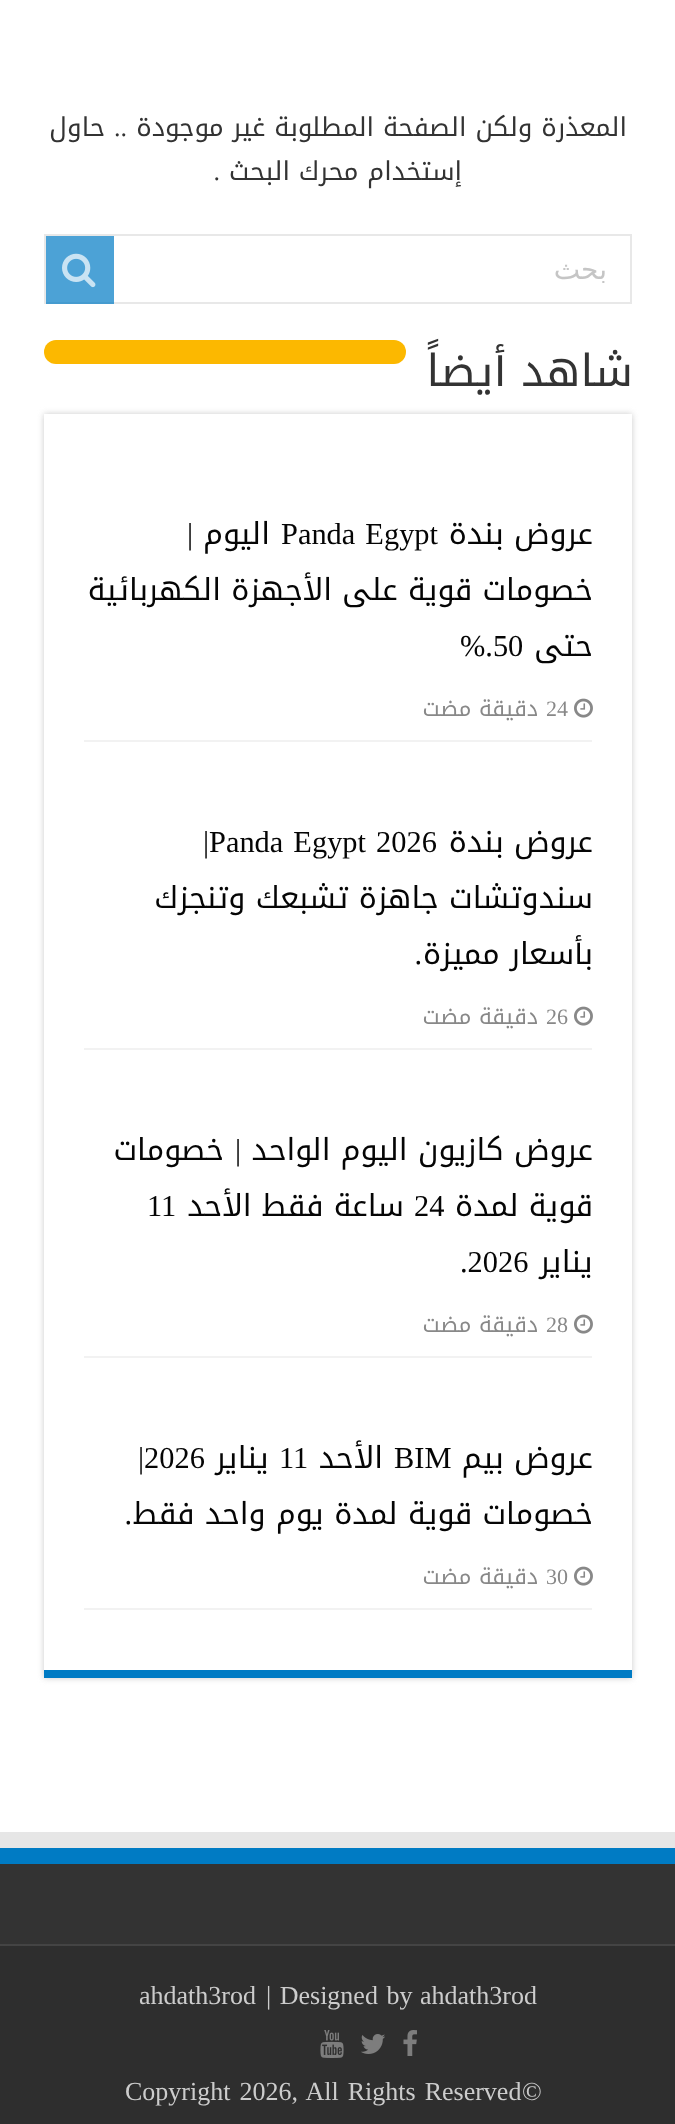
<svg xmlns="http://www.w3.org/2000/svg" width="675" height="2124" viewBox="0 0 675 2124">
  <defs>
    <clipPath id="clip1"><path d="M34 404H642V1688H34ZM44 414H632V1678H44Z" clip-rule="evenodd"/></clipPath>
  </defs>
  <rect width="100%" height="100%" fill="rgb(255,255,255)"/>
  <text x="627" y="136" font-family="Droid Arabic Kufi" font-size="26" direction="rtl" fill="rgb(51,51,51)">المعذرة ولكن الصفحة المطلوبة غير موجودة</text>
  <text x="127" y="136" font-family="Liberation Serif" font-size="26" direction="rtl" fill="rgb(51,51,51)">..</text>
  <g font-family="Droid Arabic Kufi" font-size="26" direction="rtl" fill="rgb(51,51,51)">
    <text x="105" y="136">حاول</text>
    <text x="462" y="180">إستخدام محرك البحث</text>
  </g>
  <text x="220" y="180" font-family="Liberation Serif" font-size="26" direction="rtl" fill="rgb(51,51,51)">.</text>
  <rect x="45" y="235" width="586" height="68" fill="none" stroke="rgb(232,232,232)" stroke-width="2"/>
  <text x="607" y="279" font-family="DejaVu Sans" font-size="28" direction="rtl" fill="rgb(197,197,197)">بحث</text>
  <rect x="46" y="236" width="68" height="68" fill="rgba(0,123,196,0.7)"/>
  <image x="62" y="253" width="34" height="35" href="pic1.png"/>
  <text x="633" y="386" font-family="Droid Arabic Kufi" font-size="44" direction="rtl" fill="rgb(51,51,51)">شاهد أيضاً</text>
  <rect x="44" y="340" width="362" height="24" rx="12" fill="rgb(252,184,0)"/>
  <g clip-path="url(#clip1)">
    <rect x="44" y="414" width="588" height="1264" fill="rgb(202,202,202)" filter="blur(3px)"/>
  </g>
  <rect x="44" y="1670" width="588" height="8" fill="rgb(0,123,196)"/>
  <text x="593" y="544" font-family="Droid Arabic Kufi" font-size="30.4" direction="rtl" fill="rgb(5,5,5)">عروض بندة</text>
  <text x="281" y="544" word-spacing="2.5" font-family="Liberation Serif" font-size="30.4" fill="rgb(5,5,5)">Panda Egypt</text>
  <text x="270" y="544" font-family="Droid Arabic Kufi" font-size="30.4" direction="rtl" fill="rgb(5,5,5)">اليوم</text>
  <text x="193" y="544" font-family="Liberation Serif" font-size="30.4" direction="rtl" fill="rgb(5,5,5)">|</text>
  <g font-family="Droid Arabic Kufi" font-size="30.4" direction="rtl" fill="rgb(5,5,5)">
    <text>
      <tspan x="593" y="600">خصومات قوية على الأجهزة الكهربائية</tspan>
      <tspan x="593" y="656">حتى</tspan>
    </text>
  </g>
  <text x="460" y="656" font-family="Liberation Serif" font-size="30.4" fill="rgb(5,5,5)">%.50</text>
  <rect x="84" y="740" width="508" height="2" fill="rgb(242,242,242)"/>
  <image x="574" y="698" width="19" height="20" href="pic2.png"/>
  <text x="546" y="716" font-family="Liberation Serif" font-size="22" fill="rgb(136,136,136)">24</text>
  <text x="538" y="716" font-family="Droid Arabic Kufi" font-size="22" direction="rtl" fill="rgb(136,136,136)">دقيقة مضت</text>
  <text x="593" y="852" font-family="Droid Arabic Kufi" font-size="30.4" direction="rtl" fill="rgb(5,5,5)">عروض بندة</text>
  <g font-family="Liberation Serif" font-size="30.4" fill="rgb(5,5,5)">
    <text x="209" y="852" word-spacing="2.5">Panda Egypt 2026</text>
    <text x="203" y="852">|</text>
  </g>
  <g font-family="Droid Arabic Kufi" font-size="30.4" direction="rtl" fill="rgb(5,5,5)">
    <text>
      <tspan x="593" y="908">سندوتشات جاهزة تشبعك وتنجزك</tspan>
      <tspan x="593" y="964">بأسعار مميزة</tspan>
    </text>
  </g>
  <text x="422" y="964" font-family="Liberation Serif" font-size="30.4" direction="rtl" fill="rgb(5,5,5)">.</text>
  <rect x="84" y="1048" width="508" height="2" fill="rgb(242,242,242)"/>
  <image x="574" y="1006" width="19" height="20" href="pic2.png"/>
  <text x="546" y="1024" font-family="Liberation Serif" font-size="22" fill="rgb(136,136,136)">26</text>
  <text x="538" y="1024" font-family="Droid Arabic Kufi" font-size="22" direction="rtl" fill="rgb(136,136,136)">دقيقة مضت</text>
  <text x="593" y="1160" font-family="Droid Arabic Kufi" font-size="30.4" direction="rtl" fill="rgb(5,5,5)">عروض كازيون اليوم الواحد</text>
  <text x="241" y="1160" font-family="Liberation Serif" font-size="30.4" direction="rtl" fill="rgb(5,5,5)">|</text>
  <g font-family="Droid Arabic Kufi" font-size="30.4" direction="rtl" fill="rgb(5,5,5)">
    <text x="224" y="1160">خصومات</text>
    <text x="593" y="1216">قوية لمدة</text>
  </g>
  <text x="414" y="1216" font-family="Liberation Serif" font-size="30.4" fill="rgb(5,5,5)">24</text>
  <text x="404" y="1216" font-family="Droid Arabic Kufi" font-size="30.4" direction="rtl" fill="rgb(5,5,5)">ساعة فقط الأحد</text>
  <text x="147" y="1216" font-family="Liberation Serif" font-size="30.4" fill="rgb(5,5,5)">11</text>
  <text x="593" y="1272" font-family="Droid Arabic Kufi" font-size="30.4" direction="rtl" fill="rgb(5,5,5)">يناير</text>
  <text x="460" y="1272" font-family="Liberation Serif" font-size="30.4" fill="rgb(5,5,5)">.2026</text>
  <rect x="84" y="1356" width="508" height="2" fill="rgb(242,242,242)"/>
  <image x="574" y="1314" width="19" height="20" href="pic2.png"/>
  <text x="546" y="1332" font-family="Liberation Serif" font-size="22" fill="rgb(136,136,136)">28</text>
  <text x="538" y="1332" font-family="Droid Arabic Kufi" font-size="22" direction="rtl" fill="rgb(136,136,136)">دقيقة مضت</text>
  <text x="593" y="1468" font-family="Droid Arabic Kufi" font-size="30.4" direction="rtl" fill="rgb(5,5,5)">عروض بيم</text>
  <text x="394" y="1468" font-family="Liberation Serif" font-size="30.4" fill="rgb(5,5,5)">BIM</text>
  <text x="383" y="1468" font-family="Droid Arabic Kufi" font-size="30.4" direction="rtl" fill="rgb(5,5,5)">الأحد</text>
  <text x="279" y="1468" font-family="Liberation Serif" font-size="30.4" fill="rgb(5,5,5)">11</text>
  <text x="269" y="1468" font-family="Droid Arabic Kufi" font-size="30.4" direction="rtl" fill="rgb(5,5,5)">يناير</text>
  <text x="138" y="1468" font-family="Liberation Serif" font-size="30.4" fill="rgb(5,5,5)">|2026</text>
  <text x="593" y="1524" font-family="Droid Arabic Kufi" font-size="30.4" direction="rtl" fill="rgb(5,5,5)">خصومات قوية لمدة يوم واحد فقط</text>
  <text x="132" y="1524" font-family="Liberation Serif" font-size="30.4" direction="rtl" fill="rgb(5,5,5)">.</text>
  <rect x="84" y="1608" width="508" height="2" fill="rgb(242,242,242)"/>
  <image x="574" y="1566" width="19" height="20" href="pic2.png"/>
  <text x="546" y="1584" font-family="Liberation Serif" font-size="22" fill="rgb(136,136,136)">30</text>
  <text x="538" y="1584" font-family="Droid Arabic Kufi" font-size="22" direction="rtl" fill="rgb(136,136,136)">دقيقة مضت</text>
  <rect x="0" y="1832" width="675" height="16" fill="rgb(230,230,230)"/>
  <rect x="0" y="1864" width="675" height="80" fill="rgb(51,51,51)"/>
  <rect x="0" y="1848" width="675" height="16" fill="rgb(0,123,196)"/>
  <rect x="0" y="1946" width="675" height="178" fill="rgb(46,46,46)"/>
  <rect x="0" y="1944" width="675" height="2" fill="rgb(68,68,68)"/>
  <g font-family="Liberation Serif" font-size="26" fill="rgb(204,204,204)">
    <text x="420" y="2004">ahdath3rod</text>
    <text x="266" y="2004" word-spacing="2">| Designed by</text>
    <text x="139" y="2004">ahdath3rod</text>
  </g>
  <image x="403" y="2030" width="14" height="26" href="pic3.png"/>
  <image x="361" y="2034" width="24" height="20" href="pic4.png"/>
  <image x="320" y="2030" width="24" height="28" href="pic5.png"/>
  <g font-family="Liberation Serif" font-size="26" fill="rgb(204,204,204)">
    <text x="522" y="2100">©</text>
    <text x="125" y="2100" word-spacing="2.5">Copyright 2026, All Rights Reserved</text>
  </g>
</svg>
